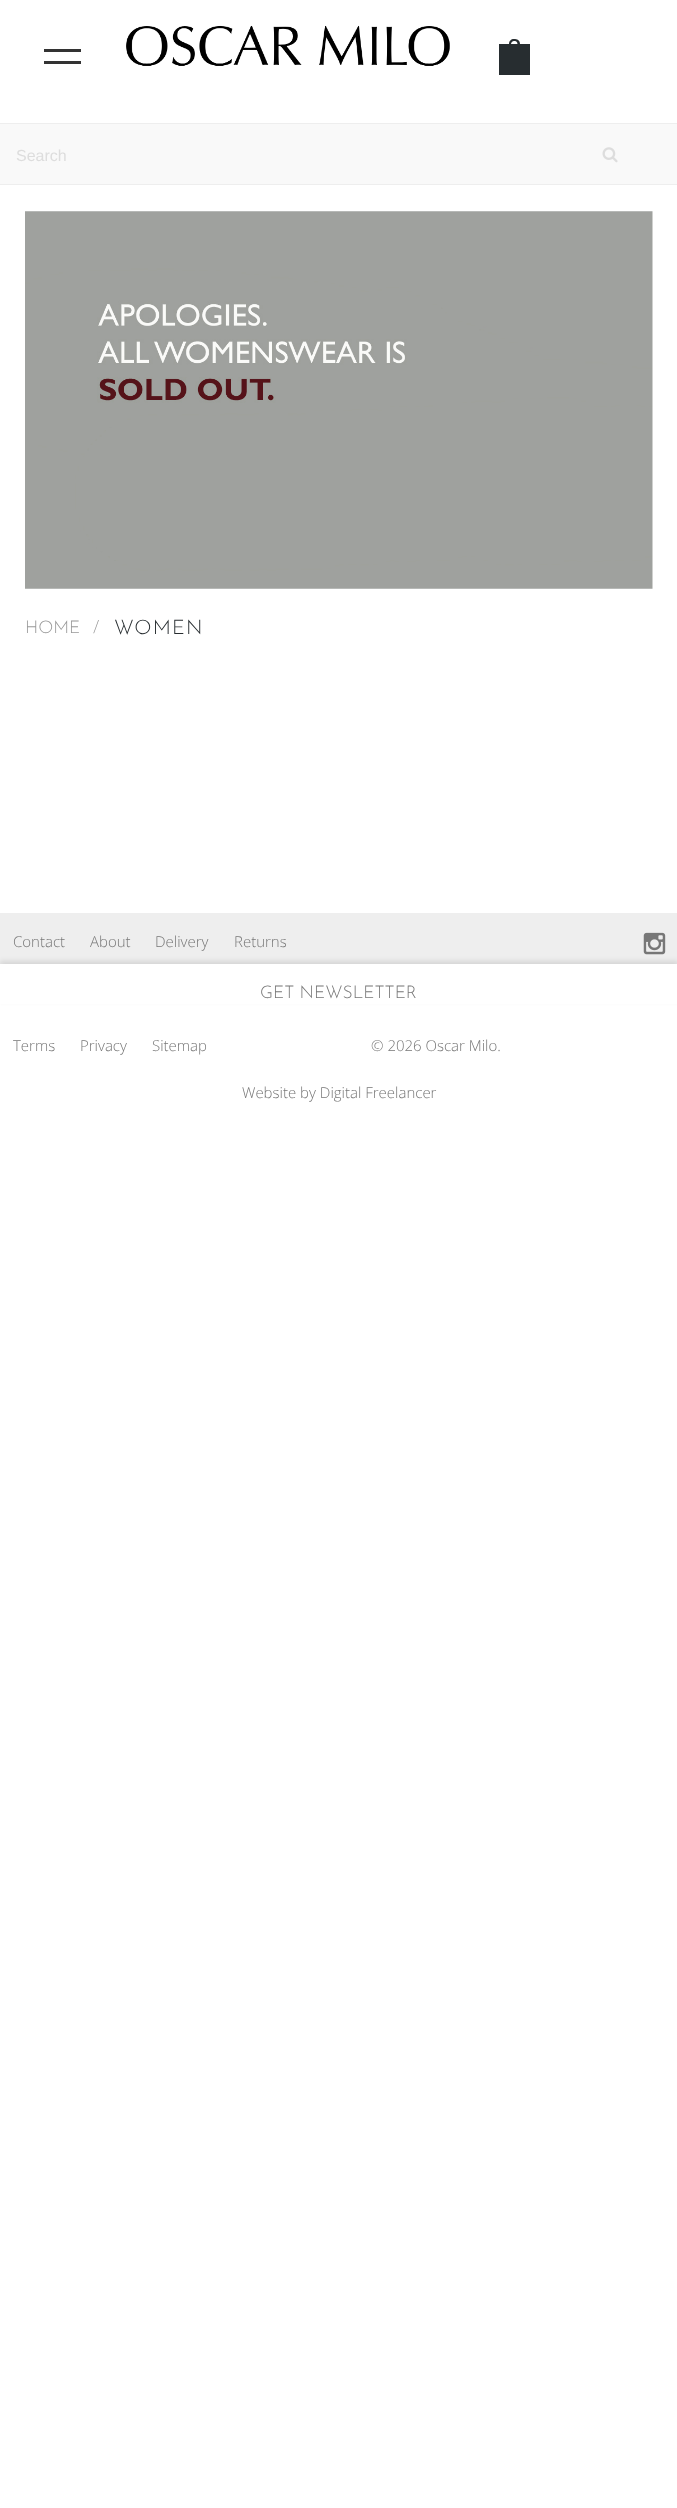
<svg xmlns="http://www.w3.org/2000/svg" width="677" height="2508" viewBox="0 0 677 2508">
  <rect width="100%" height="100%" fill="rgb(255,255,255)"/>
  <rect x="44" y="49" width="37" height="3" fill="rgb(51,51,51)"/>
  <rect x="44" y="61" width="37" height="3" fill="rgb(51,51,51)"/>
  <image x="126" y="25" width="324" height="41" href="pic1.png"/>
  <path d="M514 39C517 39 520 40 520 44H509C509 41 511 39 514 39ZM514 41C515.5 41 517.5 41.5 517.5 44H511C511 42.5 512.5 41 514 41Z" fill="rgb(39,45,48)" fill-rule="evenodd"/>
  <rect x="499" y="44" width="31" height="31" fill="rgb(39,45,48)"/>
  <rect x="0" y="124" width="677" height="60" fill="rgb(249,249,249)"/>
  <rect x="0" y="123" width="677" height="1" fill="rgb(238,238,238)"/>
  <rect x="0" y="184" width="677" height="1" fill="rgb(238,238,238)"/>
  <text x="16" y="161" font-family="Liberation Sans" font-size="16" fill="rgb(221,221,221)">Search</text>
  <image x="602" y="147" width="16" height="16" href="pic2.png"/>
  <image x="25" y="211" width="628" height="378" href="pic3.png"/>
  <g font-family="Josefin Sans" font-size="17.5" font-weight="300" fill="rgb(153,153,153)">
    <text x="25" y="633">HOME</text>
    <text x="93" y="633">/</text>
  </g>
  <text x="114" y="634" font-family="Josefin Sans" font-size="20" font-weight="300" letter-spacing="1.25" fill="rgb(39,45,48)">WOMEN</text>
  <rect x="0" y="913" width="677" height="51" fill="rgb(238,238,238)"/>
  <g font-family="Open Sans" font-size="15" font-weight="300" fill="rgb(119,119,119)">
    <text x="13" y="947">Contact</text>
    <text x="90" y="947">About</text>
    <text x="155" y="947">Delivery</text>
    <text x="234" y="947">Returns</text>
  </g>
  <image x="643" y="932" width="23" height="23" href="pic4.png"/>
  <rect x="0" y="961" width="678" height="40" fill="rgba(0,0,0,0.1)" filter="blur(2.5px)"/>
  <rect x="0" y="964" width="677" height="40" fill="rgb(255,255,255)"/>
  <text x="260" y="998" font-family="Josefin Sans" font-size="17.5" font-weight="300" fill="rgb(119,119,119)">GET NEWSLETTER</text>
  <g font-family="Open Sans" font-size="15" font-weight="300" fill="rgb(119,119,119)">
    <text x="13" y="1051">Terms</text>
    <text x="80" y="1051">Privacy</text>
    <text x="152" y="1051">Sitemap</text>
    <text x="371" y="1051">© 2026 Oscar Milo.</text>
    <text x="242" y="1098">Website by Digital Freelancer</text>
  </g>
</svg>
